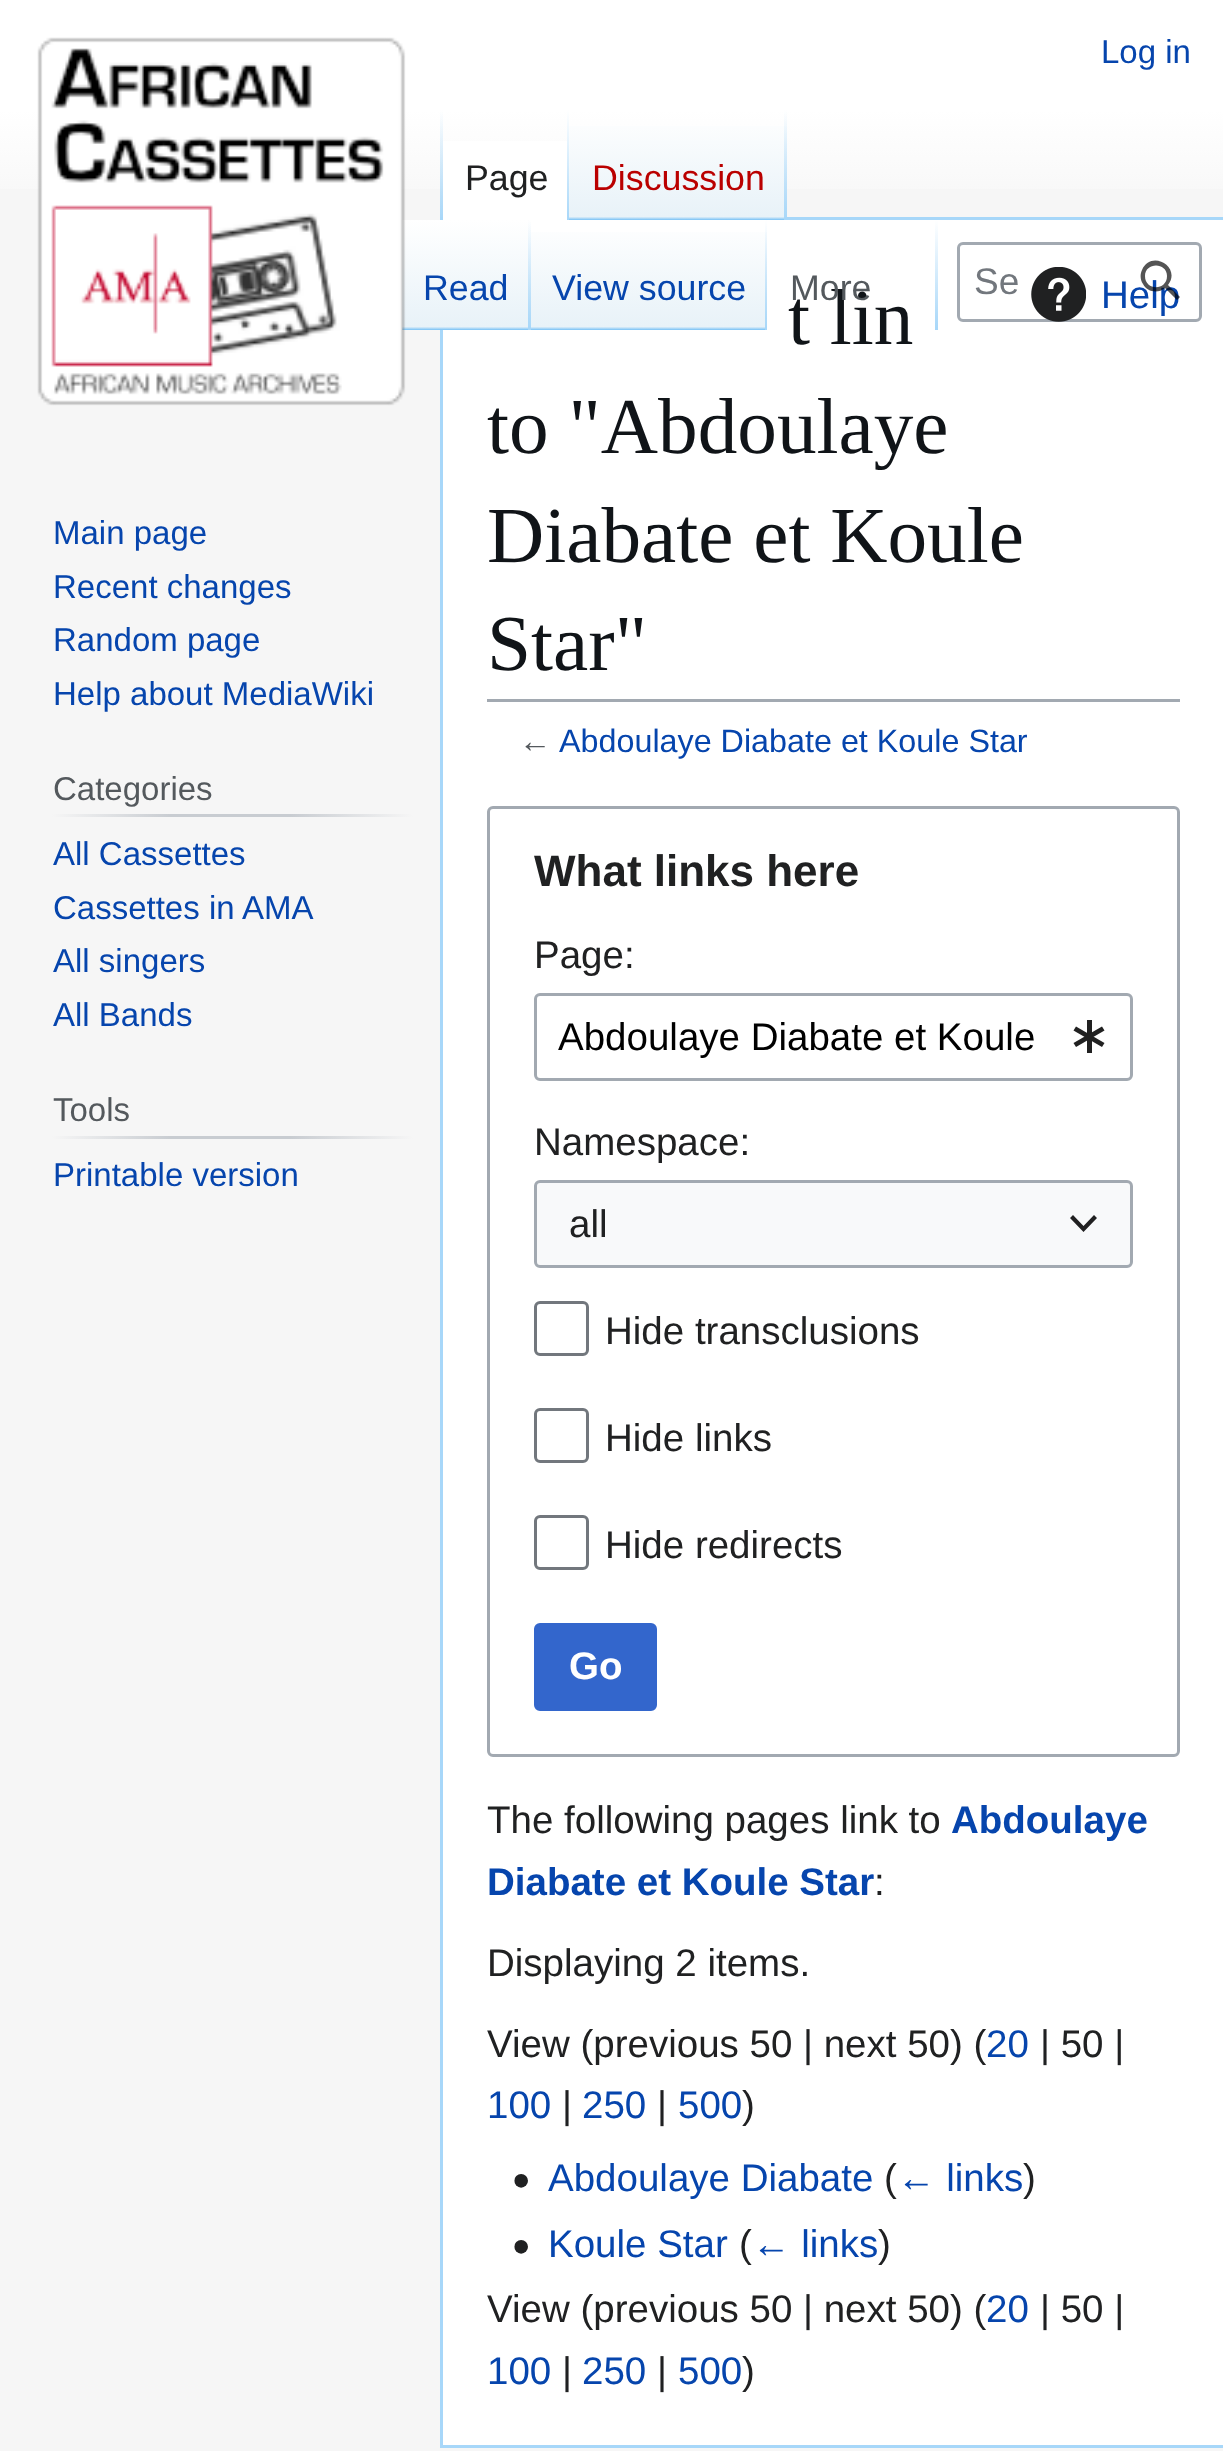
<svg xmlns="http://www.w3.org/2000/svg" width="1223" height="2451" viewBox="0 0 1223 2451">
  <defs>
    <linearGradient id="g1" gradientUnits="userSpaceOnUse" x1="612" y1="0" x2="612" y2="220"><stop offset="0.5" stop-color="rgb(255,255,255)"/><stop offset="1" stop-color="rgb(246,246,246)"/></linearGradient>
    <linearGradient id="g2" gradientUnits="userSpaceOnUse" x1="441" y1="110" x2="441" y2="220"><stop offset="0" stop-color="rgb(167,215,249)" stop-opacity="0"/><stop offset="1" stop-color="rgb(167,215,249)"/></linearGradient>
    <linearGradient id="g3" gradientUnits="userSpaceOnUse" x1="568" y1="110" x2="568" y2="220"><stop offset="0" stop-color="rgb(255,255,255)"/><stop offset="1" stop-color="rgb(167,215,249)"/></linearGradient>
    <linearGradient id="g4" gradientUnits="userSpaceOnUse" x1="678" y1="220" x2="678" y2="110"><stop offset="0" stop-color="rgb(119,193,246)"/><stop offset="0.03" stop-color="rgb(232,242,248)"/><stop offset="1" stop-color="rgb(255,255,255)"/></linearGradient>
    <linearGradient id="g5" gradientUnits="userSpaceOnUse" x1="785" y1="110" x2="785" y2="220"><stop offset="0" stop-color="rgb(167,215,249)" stop-opacity="0"/><stop offset="1" stop-color="rgb(167,215,249)"/></linearGradient>
    <linearGradient id="g6" gradientUnits="userSpaceOnUse" x1="466" y1="330" x2="466" y2="220"><stop offset="0" stop-color="rgb(119,193,246)"/><stop offset="0.03" stop-color="rgb(232,242,248)"/><stop offset="1" stop-color="rgb(255,255,255)"/></linearGradient>
    <linearGradient id="g7" gradientUnits="userSpaceOnUse" x1="529" y1="220" x2="529" y2="330"><stop offset="0" stop-color="rgb(167,215,249)" stop-opacity="0"/><stop offset="1" stop-color="rgb(167,215,249)"/></linearGradient>
    <linearGradient id="g8" gradientUnits="userSpaceOnUse" x1="649" y1="330" x2="649" y2="220"><stop offset="0" stop-color="rgb(119,193,246)"/><stop offset="0.03" stop-color="rgb(232,242,248)"/><stop offset="1" stop-color="rgb(255,255,255)"/></linearGradient>
    <linearGradient id="g9" gradientUnits="userSpaceOnUse" x1="766" y1="220" x2="766" y2="330"><stop offset="0" stop-color="rgb(167,215,249)" stop-opacity="0"/><stop offset="1" stop-color="rgb(167,215,249)"/></linearGradient>
    <linearGradient id="g10" gradientUnits="userSpaceOnUse" x1="936" y1="220" x2="936" y2="330"><stop offset="0" stop-color="rgb(167,215,249)" stop-opacity="0"/><stop offset="1" stop-color="rgb(167,215,249)"/></linearGradient>
    <linearGradient id="g11" gradientUnits="userSpaceOnUse" x1="52" y1="815" x2="413" y2="815"><stop offset="0" stop-color="rgb(246,246,246)"/><stop offset="0.33" stop-color="rgb(200,204,209)"/><stop offset="0.66" stop-color="rgb(200,204,209)"/><stop offset="1" stop-color="rgb(246,246,246)"/></linearGradient>
    <linearGradient id="g12" gradientUnits="userSpaceOnUse" x1="52" y1="1137" x2="413" y2="1137"><stop offset="0" stop-color="rgb(246,246,246)"/><stop offset="0.33" stop-color="rgb(200,204,209)"/><stop offset="0.66" stop-color="rgb(200,204,209)"/><stop offset="1" stop-color="rgb(246,246,246)"/></linearGradient>
  </defs>
  <rect width="100%" height="100%" fill="rgb(246,246,246)"/>
  <rect x="0" y="0" width="1223" height="189" fill="url(#g1)"/>
  <text x="1101" y="63" font-family="Liberation Sans" font-size="33" fill="rgb(6,69,173)">Log in</text>
  <rect x="440" y="2445" width="783" height="3" fill="rgb(167,215,249)"/>
  <rect x="440" y="217" width="3" height="2231" fill="rgb(167,215,249)"/>
  <rect x="440" y="110" width="3" height="110" fill="url(#g2)"/>
  <rect x="443" y="141" width="124" height="79" fill="rgb(255,255,255)"/>
  <rect x="567" y="110" width="2" height="110" fill="url(#g3)"/>
  <text x="465" y="190" font-family="Liberation Sans" font-size="35.75" fill="rgb(32,33,34)">Page</text>
  <rect x="569" y="126" width="218" height="94" fill="url(#g4)"/>
  <rect x="784" y="110" width="3" height="110" fill="url(#g5)"/>
  <text x="592" y="190" font-family="Liberation Sans" font-size="35.75" fill="rgb(186,0,0)">Discussion</text>
  <rect x="443" y="220" width="780" height="2225" fill="rgb(255,255,255)"/>
  <rect x="402" y="220" width="129" height="110" fill="url(#g6)"/>
  <rect x="528" y="220" width="3" height="110" fill="url(#g7)"/>
  <text x="423" y="300" font-family="Liberation Sans" font-size="35.75" fill="rgb(6,69,173)">Read</text>
  <rect x="531" y="232" width="236" height="98" fill="url(#g8)"/>
  <rect x="765" y="220" width="2" height="110" fill="url(#g9)"/>
  <text x="552" y="300" font-family="Liberation Sans" font-size="35.75" fill="rgb(6,69,173)">View source</text>
  <rect x="935" y="220" width="3" height="110" fill="url(#g10)"/>
  <text x="788" y="344" font-family="Liberation Serif" font-size="79.25" fill="rgb(16,20,24)">t lin</text>
  <text x="790" y="300" font-family="Liberation Sans" font-size="35.75" fill="rgb(84,89,93)">More</text>
  <rect x="958.5" y="243.5" width="242" height="77" rx="4.5" fill="none" stroke="rgb(162,169,177)" stroke-width="3"/>
  <text x="974" y="294" font-family="Liberation Sans" font-size="37" fill="rgb(114,119,125)">Se</text>
  <text x="1101" y="308" font-family="Liberation Sans" font-size="38.5" fill="rgb(6,69,173)">Help</text>
  <path d="M1165 288C1158 294 1147 292 1143 284C1140 280 1140 274 1142 270C1151 249 1182 267 1168 285L1180 297L1177 300ZM1145 276C1145 291 1167 291 1167 276C1167 262 1145 262 1145 276" fill="rgba(0,0,0,0.67)"/>
  <image x="37" y="37" width="369" height="369" href="pic1.png"/>
  <g font-family="Liberation Sans" font-size="33" fill="rgb(6,69,173)">
    <text>
      <tspan x="53" y="544">Main page</tspan>
      <tspan x="53" y="598">Recent changes</tspan>
      <tspan x="53" y="651">Random page</tspan>
      <tspan x="53" y="705">Help about MediaWiki</tspan>
    </text>
  </g>
  <rect x="52" y="814" width="361" height="3" fill="url(#g11)"/>
  <text x="53" y="800" font-family="Liberation Sans" font-size="33" fill="rgb(84,89,93)">Categories</text>
  <g font-family="Liberation Sans" font-size="33" fill="rgb(6,69,173)">
    <text>
      <tspan x="53" y="865">All Cassettes</tspan>
      <tspan x="53" y="919">Cassettes in AMA</tspan>
      <tspan x="53" y="972">All singers</tspan>
      <tspan x="53" y="1026">All Bands</tspan>
    </text>
  </g>
  <rect x="52" y="1136" width="361" height="3" fill="url(#g12)"/>
  <text x="53" y="1121" font-family="Liberation Sans" font-size="33" fill="rgb(84,89,93)">Tools</text>
  <text x="53" y="1186" font-family="Liberation Sans" font-size="33" fill="rgb(6,69,173)">Printable version</text>
  <rect x="787" y="217" width="436" height="3" fill="rgb(167,215,249)"/>
  <rect x="487" y="699" width="693" height="3" fill="rgb(162,169,177)"/>
  <g font-family="Liberation Serif" font-size="79.25" fill="rgb(16,20,24)">
    <text>
      <tspan x="487" y="453">to "Abdoulaye</tspan>
      <tspan x="487" y="562">Diabate et Koule</tspan>
      <tspan x="487" y="670">Star"</tspan>
    </text>
  </g>
  <image x="1031" y="267" width="55" height="55" href="pic2.png"/>
  <text x="519" y="752" font-family="Liberation Sans" font-size="32.3" fill="rgb(84,89,93)">←</text>
  <text x="559" y="752" font-family="Liberation Sans" font-size="32.3" fill="rgb(6,69,173)">Abdoulaye Diabate et Koule Star</text>
  <rect x="488.5" y="807.5" width="690" height="948" rx="4.5" fill="none" stroke="rgb(162,169,177)" stroke-width="3"/>
  <text x="534" y="886" font-family="Liberation Sans" font-size="44" font-weight="bold" fill="rgb(32,33,34)">What links here</text>
  <text x="534" y="968" font-family="Liberation Sans" font-size="38.5" fill="rgb(32,33,34)">Page:</text>
  <rect x="535.5" y="994.5" width="596" height="85" rx="4.5" fill="none" stroke="rgb(162,169,177)" stroke-width="3"/>
  <text x="558" y="1050" font-family="Liberation Sans" font-size="38.5" fill="rgb(0,0,0)">Abdoulaye Diabate et Koule</text>
  <rect x="1087" y="1020" width="5" height="33" fill="rgb(33,33,33)"/>
  <path d="M1104.5 1043L1102 1047L1073.5 1030.5L1076 1026.5Z" fill="rgb(33,33,33)"/>
  <path d="M1102 1026.5L1104.5 1030.5L1076 1047L1073.5 1043Z" fill="rgb(33,33,33)"/>
  <text x="534" y="1155" font-family="Liberation Sans" font-size="38.5" fill="rgb(32,33,34)">Namespace:</text>
  <rect x="535.5" y="1181.5" width="596" height="85" rx="4.5" fill="rgb(248,249,250)" stroke="rgb(162,169,177)" stroke-width="3"/>
  <text x="569" y="1237" font-family="Liberation Sans" font-size="38.5" fill="rgb(32,33,34)">all</text>
  <path d="M1094 1215L1083.5 1226L1073 1215L1070 1218L1083.5 1232L1097 1218Z" fill="rgb(32,32,33)"/>
  <rect x="535.5" y="1302.5" width="52" height="52" rx="4.5" fill="none" stroke="rgb(114,119,125)" stroke-width="3"/>
  <text x="605" y="1344" font-family="Liberation Sans" font-size="38.5" fill="rgb(32,33,34)">Hide transclusions</text>
  <rect x="535.5" y="1409.5" width="52" height="52" rx="4.5" fill="none" stroke="rgb(114,119,125)" stroke-width="3"/>
  <text x="605" y="1451" font-family="Liberation Sans" font-size="38.5" fill="rgb(32,33,34)">Hide links</text>
  <rect x="535.5" y="1516.5" width="52" height="52" rx="4.5" fill="none" stroke="rgb(114,119,125)" stroke-width="3"/>
  <text x="605" y="1558" font-family="Liberation Sans" font-size="38.5" fill="rgb(32,33,34)">Hide redirects</text>
  <rect x="535.5" y="1624.5" width="120" height="85" rx="4.5" fill="rgb(51,102,204)" stroke="rgb(51,102,204)" stroke-width="3"/>
  <text x="569" y="1679" font-family="Liberation Sans" font-size="38.5" font-weight="bold" fill="rgb(255,255,255)">Go</text>
  <text x="487" y="1833" font-family="Liberation Sans" font-size="38.5" fill="rgb(32,33,34)">The following pages link to</text>
  <g font-family="Liberation Sans" font-size="38.5" font-weight="bold" fill="rgb(6,69,173)">
    <text x="951" y="1833">Abdoulaye</text>
    <text x="487" y="1895">Diabate et Koule Star</text>
  </g>
  <g font-family="Liberation Sans" font-size="38.5" fill="rgb(32,33,34)">
    <text x="874" y="1895">:</text>
    <text x="487" y="1976">Displaying 2 items.</text>
    <text x="487" y="2057">View (previous 50 | next 50) (</text>
  </g>
  <text x="986" y="2057" font-family="Liberation Sans" font-size="38.5" fill="rgb(6,69,173)">20</text>
  <text x="1040" y="2057" font-family="Liberation Sans" font-size="38.5" fill="rgb(32,33,34)">| 50 |</text>
  <text x="487" y="2118" font-family="Liberation Sans" font-size="38.5" fill="rgb(6,69,173)">100</text>
  <text x="562" y="2118" font-family="Liberation Sans" font-size="38.5" fill="rgb(32,33,34)">|</text>
  <text x="582" y="2118" font-family="Liberation Sans" font-size="38.5" fill="rgb(6,69,173)">250</text>
  <text x="657" y="2118" font-family="Liberation Sans" font-size="38.5" fill="rgb(32,33,34)">|</text>
  <text x="678" y="2118" font-family="Liberation Sans" font-size="38.5" fill="rgb(6,69,173)">500</text>
  <text x="742" y="2118" font-family="Liberation Sans" font-size="38.5" fill="rgb(32,33,34)">)</text>
  <image x="514" y="2174" width="14" height="14" href="pic3.png"/>
  <text x="548" y="2191" font-family="Liberation Sans" font-size="38.5" fill="rgb(6,69,173)">Abdoulaye Diabate</text>
  <text x="884" y="2191" font-family="Liberation Sans" font-size="38.5" fill="rgb(32,33,34)">(</text>
  <text x="897" y="2191" font-family="Liberation Sans" font-size="38.5" fill="rgb(6,69,173)">← links</text>
  <text x="1023" y="2191" font-family="Liberation Sans" font-size="38.5" fill="rgb(32,33,34)">)</text>
  <image x="514" y="2240" width="14" height="14" href="pic3.png"/>
  <text x="548" y="2257" font-family="Liberation Sans" font-size="38.5" fill="rgb(6,69,173)">Koule Star</text>
  <text x="739" y="2257" font-family="Liberation Sans" font-size="38.5" fill="rgb(32,33,34)">(</text>
  <text x="752" y="2257" font-family="Liberation Sans" font-size="38.5" fill="rgb(6,69,173)">← links</text>
  <g font-family="Liberation Sans" font-size="38.5" fill="rgb(32,33,34)">
    <text x="878" y="2257">)</text>
    <text x="487" y="2322">View (previous 50 | next 50) (</text>
  </g>
  <text x="986" y="2322" font-family="Liberation Sans" font-size="38.5" fill="rgb(6,69,173)">20</text>
  <text x="1040" y="2322" font-family="Liberation Sans" font-size="38.5" fill="rgb(32,33,34)">| 50 |</text>
  <text x="487" y="2384" font-family="Liberation Sans" font-size="38.5" fill="rgb(6,69,173)">100</text>
  <text x="562" y="2384" font-family="Liberation Sans" font-size="38.5" fill="rgb(32,33,34)">|</text>
  <text x="582" y="2384" font-family="Liberation Sans" font-size="38.5" fill="rgb(6,69,173)">250</text>
  <text x="657" y="2384" font-family="Liberation Sans" font-size="38.5" fill="rgb(32,33,34)">|</text>
  <text x="678" y="2384" font-family="Liberation Sans" font-size="38.5" fill="rgb(6,69,173)">500</text>
  <text x="742" y="2384" font-family="Liberation Sans" font-size="38.5" fill="rgb(32,33,34)">)</text>
</svg>
